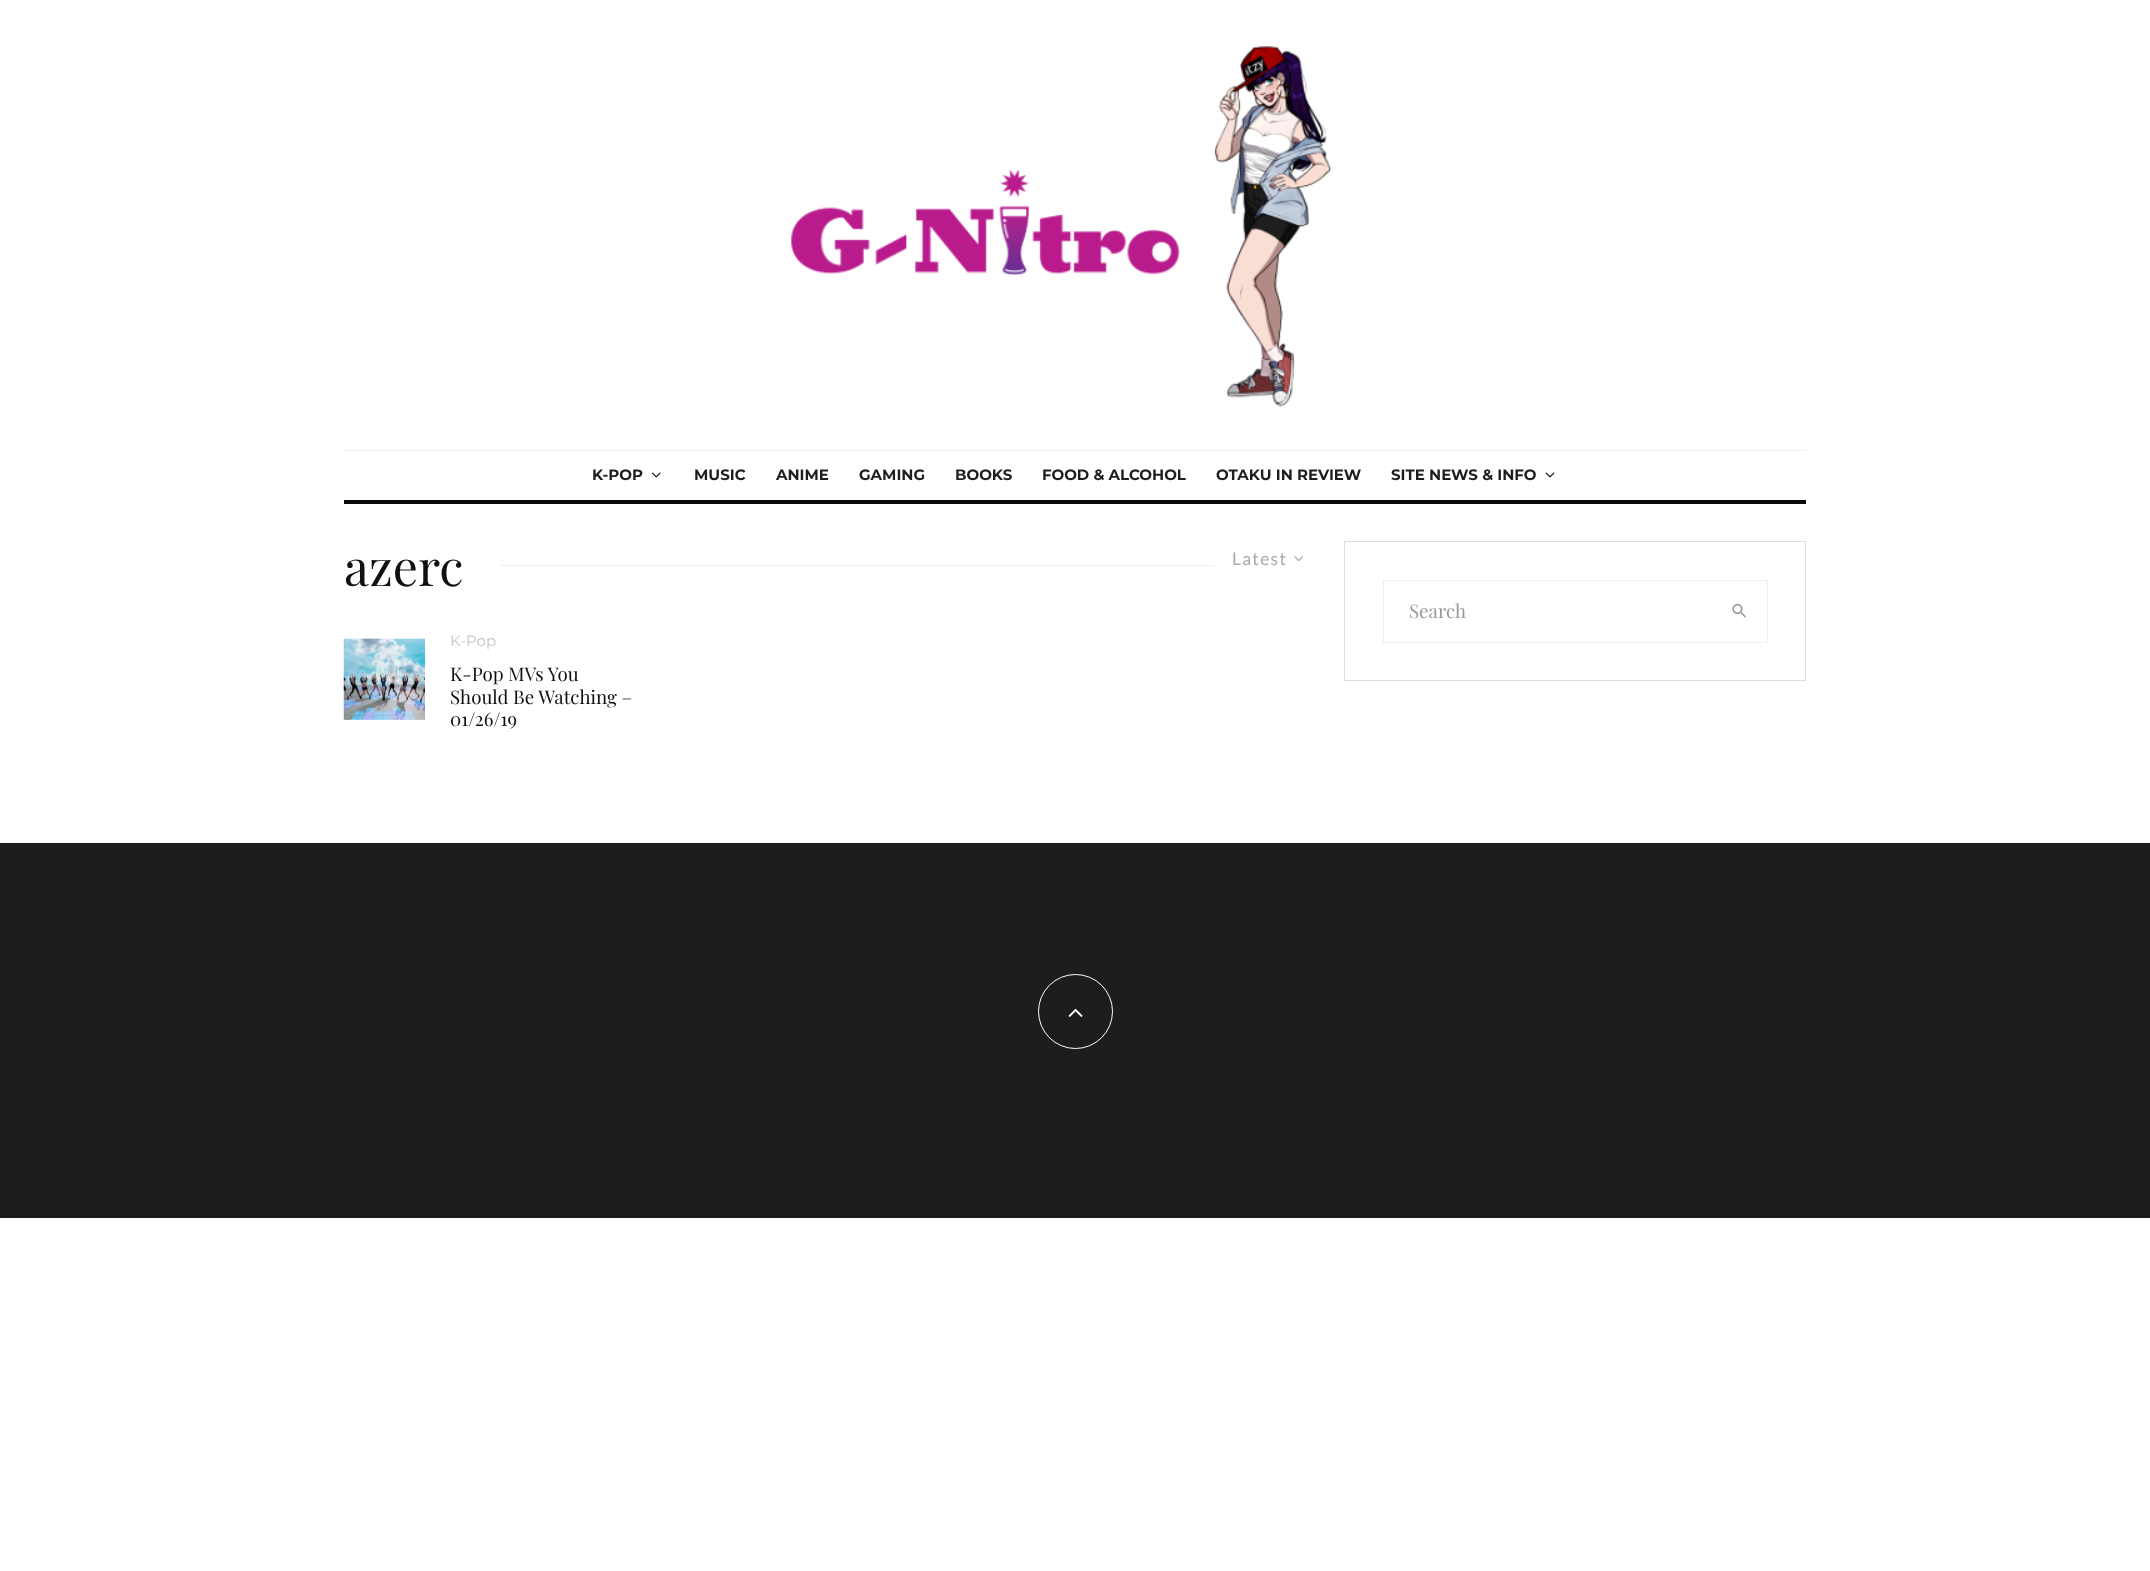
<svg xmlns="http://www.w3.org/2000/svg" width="2150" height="1571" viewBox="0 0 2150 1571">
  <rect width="100%" height="100%" fill="rgb(255,255,255)"/>
  <image x="791" y="46" width="541" height="361" href="pic1.png"/>
  <rect x="344" y="450" width="1462" height="1" fill="rgb(238,238,238)"/>
  <rect x="344" y="500" width="1462" height="4" fill="rgb(10,10,10)"/>
  <text x="592" y="480" font-family="Montserrat" font-size="15" font-weight="bold" fill="rgb(30,30,30)">K-POP</text>
  <image x="651" y="472" width="10" height="6" href="pic2.png"/>
  <g font-family="Montserrat" font-size="15" font-weight="bold" fill="rgb(30,30,30)">
    <text x="694" y="480">MUSIC</text>
    <text x="776" y="480">ANIME</text>
    <text x="859" y="480">GAMING</text>
    <text x="955" y="480">BOOKS</text>
    <text x="1042" y="480">FOOD &amp; ALCOHOL</text>
    <text x="1216" y="480">OTAKU IN REVIEW</text>
    <text x="1391" y="480">SITE NEWS &amp; INFO</text>
  </g>
  <image x="1545" y="472" width="10" height="6" href="pic3.png"/>
  <text x="344" y="586" font-family="Playfair Display" font-size="50" fill="rgb(17,17,17)">azerc</text>
  <rect x="501" y="565" width="713" height="1" fill="rgb(238,238,238)"/>
  <text x="1232" y="565" font-family="Lato" font-size="17.5" letter-spacing="1.25" fill="rgb(170,170,170)">Latest</text>
  <image x="1294" y="556" width="9" height="6" href="pic4.png"/>
  <image x="343" y="638" width="82" height="82" href="pic5.png"/>
  <text x="450" y="646" font-family="Montserrat" font-size="15" fill="rgb(196,196,196)">K-Pop</text>
  <g font-family="Playfair Display" font-size="18.75" fill="rgb(17,17,17)">
    <text>
      <tspan x="450" y="681">K-Pop MVs You</tspan>
      <tspan x="450" y="704">Should Be Watching –</tspan>
      <tspan x="450" y="726">01/26/19</tspan>
    </text>
  </g>
  <rect x="1344.5" y="541.5" width="461" height="139" fill="none" stroke="rgb(221,221,221)"/>
  <rect x="1383.5" y="580.5" width="384" height="62" fill="none" stroke="rgb(238,238,238)"/>
  <text x="1409" y="618" font-family="Playfair Display" font-size="18.75" fill="rgb(153,153,153)">Search</text>
  <image x="1732" y="603" width="14" height="15" href="pic6.png"/>
  <rect x="0" y="843" width="2150" height="375" fill="rgb(28,29,30)"/>
  <circle cx="1075.5" cy="1011.5" r="37" fill="none" stroke="rgb(255,255,255)"/>
  <image x="1068" y="1008" width="15" height="9" href="pic7.png"/>
</svg>
